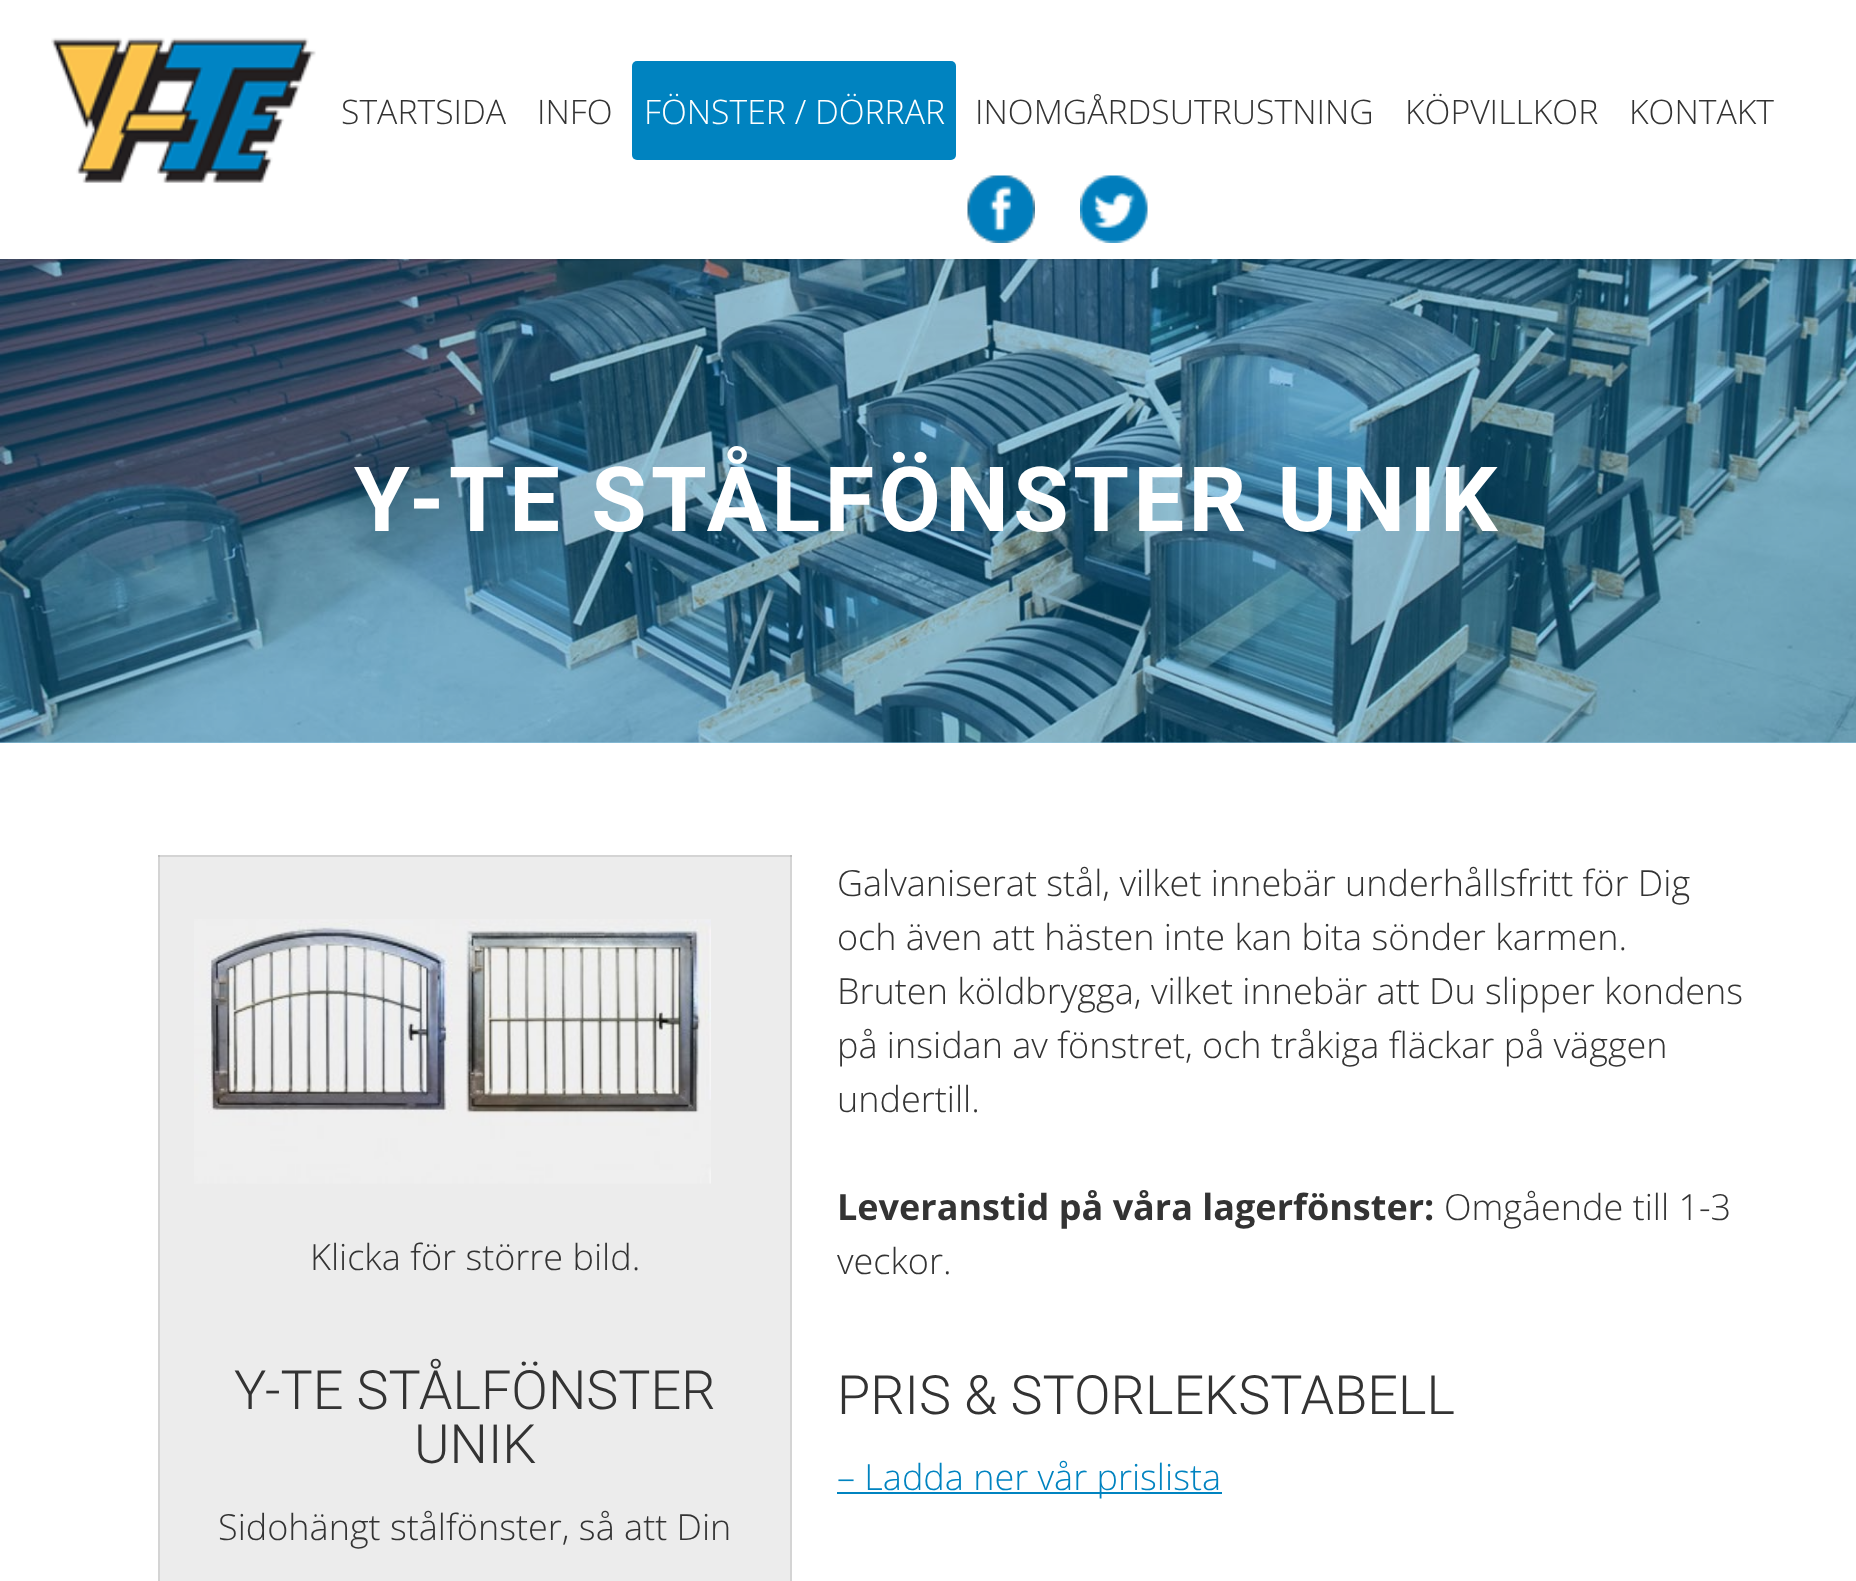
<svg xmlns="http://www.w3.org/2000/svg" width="1856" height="1581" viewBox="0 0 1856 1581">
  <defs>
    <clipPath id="clip1"><rect x="632" y="61" width="324" height="99" rx="5"/></clipPath>
  </defs>
  <rect width="100%" height="100%" fill="rgb(255,255,255)"/>
  <rect x="0" y="742" width="1856" height="1" fill="rgb(153,205,230)"/>
  <image x="0" y="259" width="1856" height="484" href="pic4.png"/>
  <rect x="0" y="259" width="1856" height="2" fill="rgba(0,0,0,0.05)"/>
  <image x="51" y="37" width="265" height="146" href="pic1.png"/>
  <g font-family="Open Sans" font-size="33.75" font-weight="300" fill="rgb(51,51,51)">
    <text x="341" y="124">STARTSIDA</text>
    <text x="537" y="124">INFO</text>
  </g>
  <g clip-path="url(#clip1)">
    <circle cx="794.5" cy="101.5" r="281.5" fill="rgb(0,131,192)"/>
  </g>
  <text x="644" y="124" font-family="Open Sans" font-size="33.75" font-weight="300" fill="rgb(255,255,255)">FÖNSTER / DÖRRAR</text>
  <g font-family="Open Sans" font-size="33.75" font-weight="300" fill="rgb(51,51,51)">
    <text x="975" y="124">INOMGÅRDSUTRUSTNING</text>
    <text x="1405" y="124">KÖPVILLKOR</text>
    <text x="1629" y="124">KONTAKT</text>
  </g>
  <image x="967" y="175" width="68" height="68" href="pic2.png"/>
  <image x="1080" y="175" width="68" height="68" href="pic3.png"/>
  <text x="354" y="531" font-family="Roboto" font-size="90" font-weight="bold" letter-spacing="4.5" fill="rgb(255,255,255)">Y-TE STÅLFÖNSTER UNIK</text>
  <g font-family="Open Sans" font-size="36" font-weight="300" fill="rgb(51,51,51)">
    <text>
      <tspan x="837" y="896">Galvaniserat stål, vilket innebär underhållsfritt för Dig</tspan>
      <tspan x="837" y="950">och även att hästen inte kan bita sönder karmen.</tspan>
      <tspan x="837" y="1004">Bruten köldbrygga, vilket innebär att Du slipper kondens</tspan>
      <tspan x="837" y="1058">på insidan av fönstret, och tråkiga fläckar på väggen</tspan>
      <tspan x="837" y="1112">undertill.</tspan>
    </text>
  </g>
  <text x="837" y="1220" font-family="Open Sans" font-size="36" font-weight="bold" fill="rgb(51,51,51)">Leveranstid på våra lagerfönster:</text>
  <g font-family="Open Sans" font-size="36" font-weight="300" fill="rgb(51,51,51)">
    <text x="1444" y="1220">Omgående till 1-3</text>
    <text x="837" y="1274">veckor.</text>
  </g>
  <rect x="160" y="857" width="630" height="724" fill="rgb(236,236,236)"/>
  <rect x="790" y="855" width="2" height="726" fill="rgb(212,212,212)"/>
  <rect x="158" y="855" width="2" height="726" fill="rgb(212,212,212)"/>
  <rect x="158" y="855" width="634" height="2" fill="rgb(212,212,212)"/>
  <rect x="790" y="855" width="2" height="2" fill="rgb(191,191,191)"/>
  <rect x="158" y="855" width="2" height="2" fill="rgb(191,191,191)"/>
  <image x="194" y="919" width="517" height="265" href="pic5.png"/>
  <text x="310" y="1270" font-family="Open Sans" font-size="36" font-weight="300" fill="rgb(51,51,51)">Klicka för större bild.</text>
  <g font-family="Roboto" font-size="54" font-weight="300" fill="rgb(51,51,51)">
    <text x="234" y="1409">Y-TE STÅLFÖNSTER</text>
    <text x="414" y="1463">UNIK</text>
  </g>
  <text x="218" y="1540" font-family="Open Sans" font-size="36" font-weight="300" fill="rgb(51,51,51)">Sidohängt stålfönster, så att Din</text>
  <text x="837" y="1414" font-family="Roboto" font-size="54" font-weight="300" fill="rgb(51,51,51)">PRIS &amp; STORLEKSTABELL</text>
  <rect x="837" y="1492" width="385" height="2" fill="rgb(0,131,192)"/>
  <text x="837" y="1490" font-family="Open Sans" font-size="36" font-weight="300" fill="rgb(0,131,192)">– Ladda ner vår prislista</text>
</svg>
